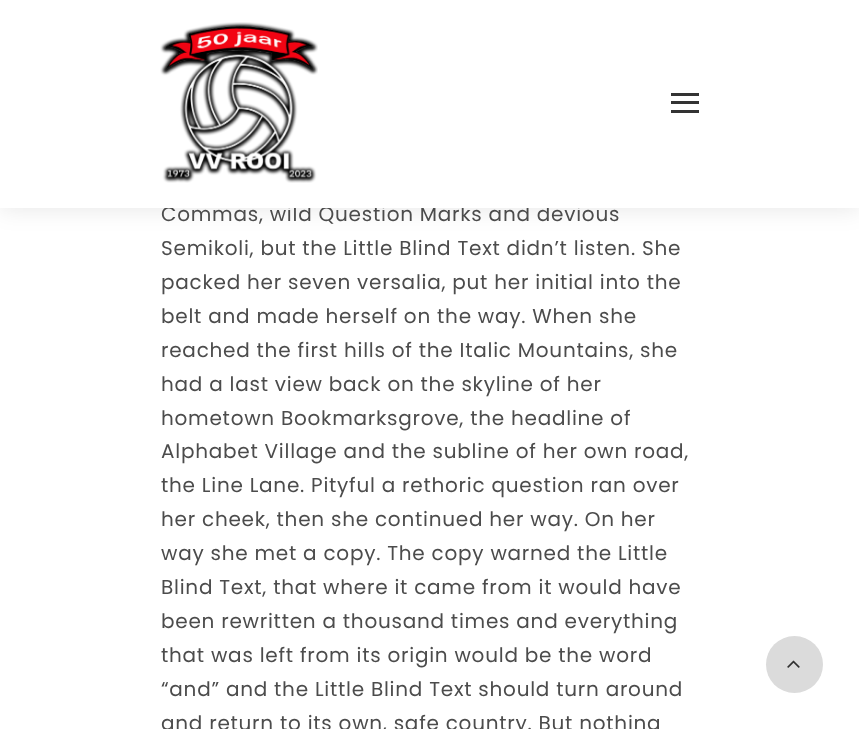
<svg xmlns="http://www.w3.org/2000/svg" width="859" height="729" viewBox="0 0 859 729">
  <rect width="100%" height="100%" fill="rgb(255,255,255)"/>
  <rect x="0" y="0" width="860" height="208" fill="rgba(0,0,0,0.1)" filter="blur(12.5px)"/>
  <text x="161" y="221" font-family="Poppins" font-size="20" letter-spacing="0.75" fill="rgb(76,76,76)">Commas, wild Question Marks and devious</text>
  <rect x="0" y="0" width="859" height="208" fill="rgb(255,255,255)"/>
  <image x="160" y="22" width="158" height="161" href="pic1.png"/>
  <rect x="671" y="93" width="28" height="3" fill="rgb(51,51,51)"/>
  <rect x="671" y="101" width="28" height="3" fill="rgb(51,51,51)"/>
  <rect x="671" y="110" width="28" height="3" fill="rgb(51,51,51)"/>
  <g font-family="Poppins" font-size="20" letter-spacing="0.75" fill="rgb(76,76,76)">
    <text>
      <tspan x="161" y="255">Semikoli, but the Little Blind Text didn’t listen. She</tspan>
      <tspan x="161" y="289">packed her seven versalia, put her initial into the</tspan>
      <tspan x="161" y="323">belt and made herself on the way. When she</tspan>
      <tspan x="161" y="357">reached the first hills of the Italic Mountains, she</tspan>
      <tspan x="161" y="391">had a last view back on the skyline of her</tspan>
      <tspan x="161" y="425">hometown Bookmarksgrove, the headline of</tspan>
      <tspan x="161" y="458">Alphabet Village and the subline of her own road,</tspan>
      <tspan x="161" y="492">the Line Lane. Pityful a rethoric question ran over</tspan>
      <tspan x="161" y="526">her cheek, then she continued her way. On her</tspan>
      <tspan x="161" y="560">way she met a copy. The copy warned the Little</tspan>
      <tspan x="161" y="594">Blind Text, that where it came from it would have</tspan>
      <tspan x="161" y="628">been rewritten a thousand times and everything</tspan>
      <tspan x="161" y="662">that was left from its origin would be the word</tspan>
      <tspan x="161" y="696">“and” and the Little Blind Text should turn around</tspan>
      <tspan x="161" y="730">and return to its own, safe country. But nothing</tspan>
    </text>
  </g>
  <circle cx="794.5" cy="664.5" r="28.5" fill="rgb(219,219,219)"/>
  <image x="787" y="660" width="13" height="8" href="pic2.png"/>
</svg>
